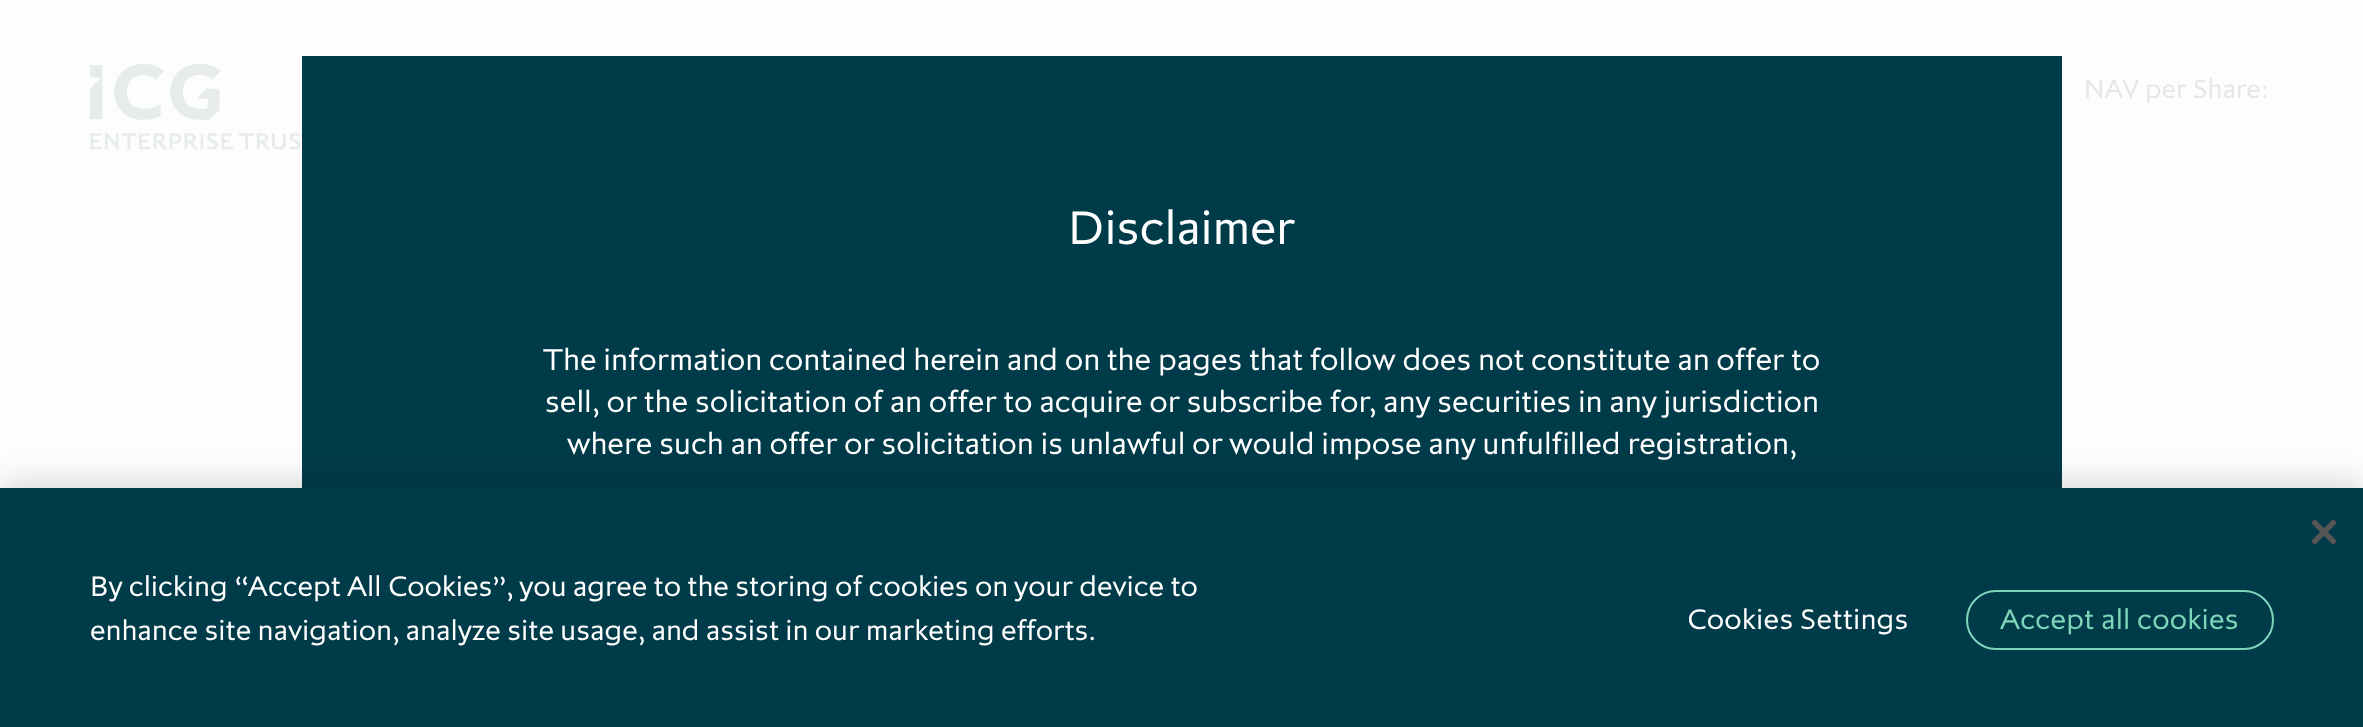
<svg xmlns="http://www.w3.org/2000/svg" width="2363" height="727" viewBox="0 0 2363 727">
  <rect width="100%" height="100%" fill="rgb(253,253,253)"/>
  <image x="90" y="64" width="212" height="86" href="pic1.png"/>
  <text x="2084" y="98" font-family="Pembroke" font-size="28" fill="rgb(230,230,230)">NAV per Share:</text>
  <rect x="302" y="56" width="1760" height="432" fill="rgb(0,59,73)"/>
  <text x="1068" y="244" font-family="Pembroke" font-size="50" fill="rgb(255,255,255)">Disclaimer</text>
  <g font-family="Pembroke" font-size="32" fill="rgb(255,255,255)">
    <text x="543" y="370">The information contained herein and on the pages that follow does not constitute an offer to</text>
    <text x="545" y="412">sell, or the solicitation of an offer to acquire or subscribe for, any securities in any jurisdiction</text>
    <text x="567" y="454">where such an offer or solicitation is unlawful or would impose any unfulfilled registration,</text>
  </g>
  <rect x="0" y="488" width="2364" height="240" fill="rgba(0,0,0,0.2)" filter="blur(18px)"/>
  <rect x="0" y="488" width="2363" height="239" fill="rgb(0,59,73)"/>
  <image x="2312" y="520" width="24" height="24" href="pic2.png"/>
  <g font-family="Pembroke" font-size="30" fill="rgb(255,255,255)">
    <text>
      <tspan x="90" y="596">By clicking “Accept All Cookies”, you agree to the storing of cookies on your device to</tspan>
      <tspan x="90" y="640">enhance site navigation, analyze site usage, and assist in our marketing efforts.</tspan>
    </text>
  </g>
  <text x="1687" y="629" font-family="Pembroke" font-size="30" letter-spacing="0.25" fill="rgb(255,255,255)">Cookies Settings</text>
  <rect x="1967" y="591" width="306" height="58" rx="29" fill="none" stroke="rgb(125,214,186)" stroke-width="2"/>
  <text x="2000" y="629" font-family="Pembroke" font-size="30" letter-spacing="0.25" fill="rgb(125,214,186)">Accept all cookies</text>
</svg>
